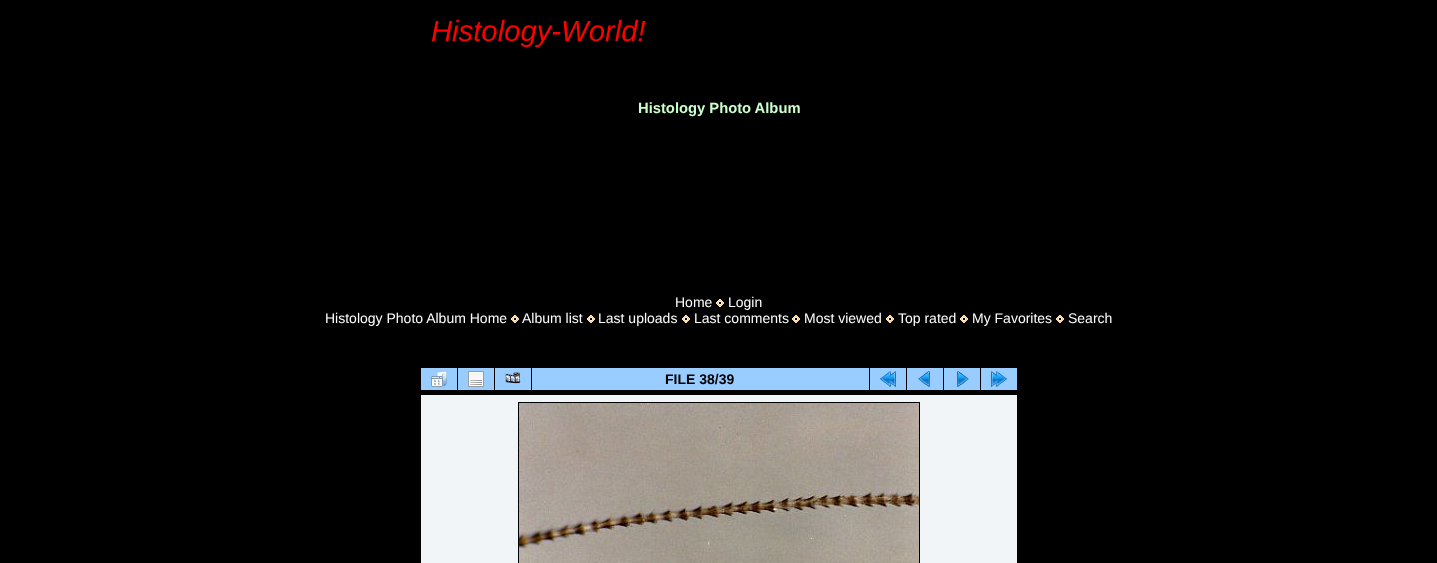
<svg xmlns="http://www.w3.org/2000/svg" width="1437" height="563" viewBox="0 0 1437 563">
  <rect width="100%" height="100%" fill="rgb(0,0,0)"/>
  <text x="431" y="41" font-family="Liberation Sans" font-size="29.25" font-style="italic" fill="rgb(255,0,0)">Histology-World!</text>
  <text x="638" y="113" font-family="Liberation Sans" font-size="14.75" font-weight="bold" fill="rgb(204,255,204)">Histology Photo Album</text>
  <text x="675" y="307" font-family="Liberation Sans" font-size="14" fill="rgb(255,255,255)">Home</text>
  <image x="716" y="299" width="8" height="8" href="pic1.png"/>
  <g font-family="Liberation Sans" font-size="14" fill="rgb(255,255,255)">
    <text x="728" y="307">Login</text>
    <text x="325" y="323">Histology Photo Album Home</text>
  </g>
  <image x="511" y="315" width="8" height="8" href="pic1.png"/>
  <text x="522" y="323" font-family="Liberation Sans" font-size="14" fill="rgb(255,255,255)">Album list</text>
  <image x="587" y="315" width="8" height="8" href="pic1.png"/>
  <text x="598" y="323" font-family="Liberation Sans" font-size="14" fill="rgb(255,255,255)">Last uploads</text>
  <image x="682" y="315" width="8" height="8" href="pic1.png"/>
  <text x="694" y="323" font-family="Liberation Sans" font-size="14" fill="rgb(255,255,255)">Last comments</text>
  <image x="792" y="315" width="8" height="8" href="pic1.png"/>
  <text x="804" y="323" font-family="Liberation Sans" font-size="14" fill="rgb(255,255,255)">Most viewed</text>
  <image x="886" y="315" width="8" height="8" href="pic1.png"/>
  <text x="898" y="323" font-family="Liberation Sans" font-size="14" fill="rgb(255,255,255)">Top rated</text>
  <image x="960" y="315" width="8" height="8" href="pic1.png"/>
  <text x="972" y="323" font-family="Liberation Sans" font-size="14" fill="rgb(255,255,255)">My Favorites</text>
  <image x="1056" y="315" width="8" height="8" href="pic1.png"/>
  <text x="1068" y="323" font-family="Liberation Sans" font-size="14" fill="rgb(255,255,255)">Search</text>
  <rect x="421" y="368" width="36" height="22" fill="rgb(153,204,255)"/>
  <image x="431" y="371" width="16" height="16" href="pic2.png"/>
  <rect x="458" y="368" width="36" height="22" fill="rgb(153,204,255)"/>
  <image x="468" y="371" width="16" height="16" href="pic3.png"/>
  <rect x="495" y="368" width="36" height="22" fill="rgb(153,204,255)"/>
  <image x="505" y="372" width="16" height="12" href="pic4.png"/>
  <rect x="532" y="368" width="337" height="22" fill="rgb(153,204,255)"/>
  <text x="665" y="384" font-family="Liberation Sans" font-size="14" font-weight="bold" fill="rgb(0,0,0)">FILE 38/39</text>
  <rect x="870" y="368" width="36" height="22" fill="rgb(153,204,255)"/>
  <image x="880" y="371" width="16" height="16" href="pic5.png"/>
  <rect x="907" y="368" width="36" height="22" fill="rgb(153,204,255)"/>
  <image x="918" y="371" width="12" height="16" href="pic6.png"/>
  <rect x="944" y="368" width="36" height="22" fill="rgb(153,204,255)"/>
  <image x="957" y="371" width="12" height="16" href="pic7.png"/>
  <rect x="981" y="368" width="36" height="22" fill="rgb(153,204,255)"/>
  <image x="991" y="371" width="16" height="16" href="pic8.png"/>
  <rect x="421" y="395" width="596" height="168" fill="rgb(242,245,247)"/>
  <rect x="518.5" y="402.5" width="401" height="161" fill="none" stroke="rgb(0,0,0)"/>
  <image x="519" y="403" width="400" height="160" href="pic9.png"/>
</svg>
